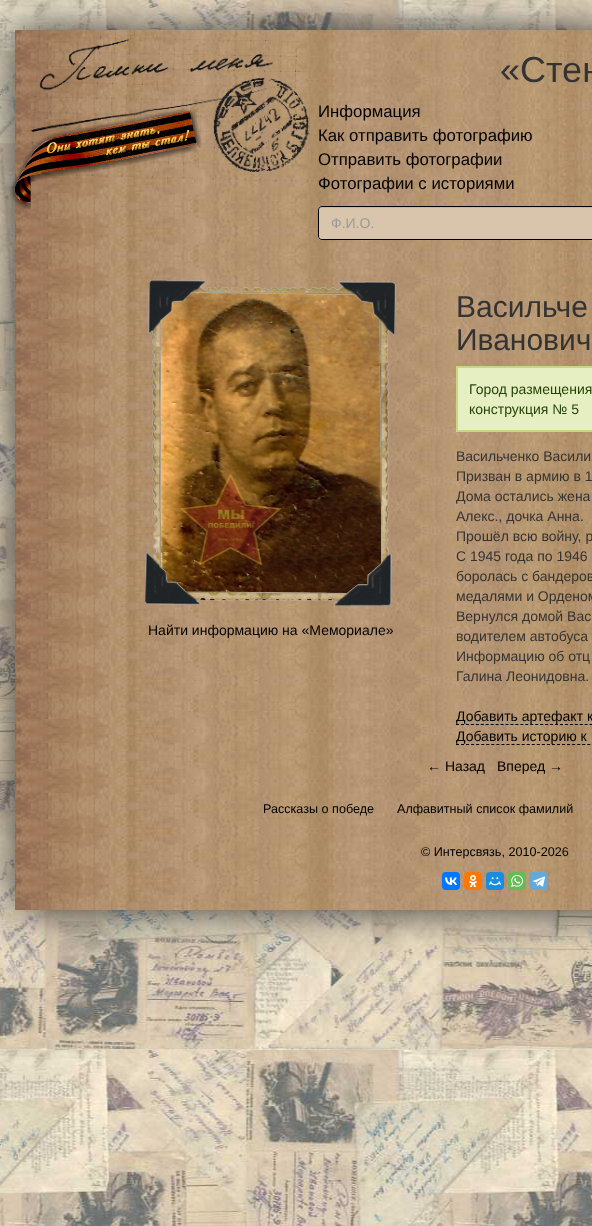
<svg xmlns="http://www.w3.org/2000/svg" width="592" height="1226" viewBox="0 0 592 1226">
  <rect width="100%" height="100%" fill="rgb(255,255,255)"/>
  <image x="0" y="0" width="592" height="1226" href="pic1.png"/>
  <rect x="15" y="30" width="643" height="880" fill="rgb(51,51,51)" filter="blur(22px)"/>
  <image x="15" y="30" width="577" height="880" href="pic2.png"/>
  <image x="30" y="30" width="280" height="153" href="pic3.png"/>
  <image x="10" y="107" width="192" height="102" href="pic4.png"/>
  <text x="500" y="82" font-family="Liberation Sans" font-size="36" fill="rgb(51,51,51)">«Стен</text>
  <g font-family="Liberation Sans" font-size="16.75" fill="rgb(0,0,0)">
    <text>
      <tspan x="318" y="117">Информация</tspan>
      <tspan x="318" y="141">Как отправить фотографию</tspan>
      <tspan x="318" y="165">Отправить фотографии</tspan>
      <tspan x="318" y="189">Фотографии с историями</tspan>
    </text>
  </g>
  <path d="M322 206H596V240H322C320 240 318 238 318 236V210C318 208 320 206 322 206Z" fill="rgb(217,197,172)"/>
  <path d="M322 208H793V207H322C320 207 319 209 319 211C319 209 320 208 322 208Z" fill="rgb(201,182,159)"/>
  <path d="M322 206.5H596.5V239.5H322C320 239.5 318.5 238 318.5 236V210C318.5 208 320 206.5 322 206.5Z" fill="none" stroke="rgb(0,0,0)"/>
  <text x="331" y="228" font-family="Liberation Sans" font-size="14" fill="rgb(153,153,153)">Ф.И.О.</text>
  <image x="161" y="290" width="220" height="310" href="pic6.png"/>
  <image x="144" y="279" width="252" height="327" href="pic5.png"/>
  <text x="148" y="635" font-family="Liberation Sans" font-size="14" fill="rgb(0,0,0)">Найти информацию на «Мемориале»</text>
  <g font-family="Liberation Sans" font-size="30" fill="rgb(51,51,51)">
    <text>
      <tspan x="456" y="317">Васильче</tspan>
      <tspan x="456" y="350">Иванович</tspan>
    </text>
  </g>
  <rect x="457" y="367" width="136" height="64" fill="rgb(230,239,194)" stroke="rgb(198,216,128)" stroke-width="2"/>
  <g font-family="Liberation Sans" font-size="14" fill="rgb(38,68,9)">
    <text>
      <tspan x="469" y="394">Город размещения</tspan>
      <tspan x="469" y="414">конструкция № 5</tspan>
    </text>
  </g>
  <g font-family="Liberation Sans" font-size="14" fill="rgb(51,51,51)">
    <text>
      <tspan x="456" y="461">Васильченко Васили</tspan>
      <tspan x="456" y="481">Призван в армию в 1</tspan>
      <tspan x="456" y="501">Дома остались жена</tspan>
      <tspan x="456" y="521">Алекс., дочка Анна.</tspan>
      <tspan x="456" y="541">Прошёл всю войну, р</tspan>
      <tspan x="456" y="561">С 1945 года по 1946</tspan>
      <tspan x="456" y="581">боролась с бандеров</tspan>
      <tspan x="456" y="601">медалями и Орденом</tspan>
      <tspan x="456" y="621">Вернулся домой Вас</tspan>
      <tspan x="456" y="641">водителем автобуса</tspan>
      <tspan x="456" y="661">Информацию об отц</tspan>
      <tspan x="456" y="681">Галина Леонидовна.</tspan>
    </text>
  </g>
  <text x="456" y="721" font-family="Liberation Sans" font-size="14" fill="rgb(0,0,0)">Добавить артефакт к</text>
  <path d="M456 724.5H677" fill="none" stroke="rgb(0,0,0)" stroke-dasharray="3 1.95"/>
  <text x="456" y="741" font-family="Liberation Sans" font-size="14" fill="rgb(0,0,0)">Добавить историю к</text>
  <path d="M456 744.5H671" fill="none" stroke="rgb(0,0,0)" stroke-dasharray="3 2.05"/>
  <g font-family="Liberation Sans" font-size="14" fill="rgb(0,0,0)">
    <text x="427" y="771">← Назад</text>
    <text x="497" y="771">Вперед →</text>
  </g>
  <g font-family="Liberation Sans" font-size="12.6" fill="rgb(0,0,0)">
    <text x="263" y="813">Рассказы о победе</text>
    <text x="397" y="813">Алфавитный список фамилий</text>
    <text x="421" y="856">© Интерсвязь, 2010-2026</text>
  </g>
  <rect x="442" y="872" width="18" height="18" rx="4" fill="rgb(0,119,255)"/>
  <image x="445" y="877" width="12" height="8" href="pic7.png"/>
  <rect x="464" y="872" width="18" height="18" rx="4" fill="rgb(255,119,0)"/>
  <image x="469" y="875" width="8" height="12" href="pic8.png"/>
  <rect x="486" y="872" width="18" height="18" rx="4" fill="rgb(22,141,226)"/>
  <image x="489" y="877" width="12" height="9" href="pic9.png"/>
  <rect x="508" y="872" width="18" height="18" rx="4" fill="rgb(101,188,84)"/>
  <image x="511" y="875" width="12" height="12" href="pic10.png"/>
  <rect x="530" y="872" width="18" height="18" rx="4" fill="rgb(100,169,220)"/>
  <image x="533" y="876" width="12" height="11" href="pic11.png"/>
</svg>
